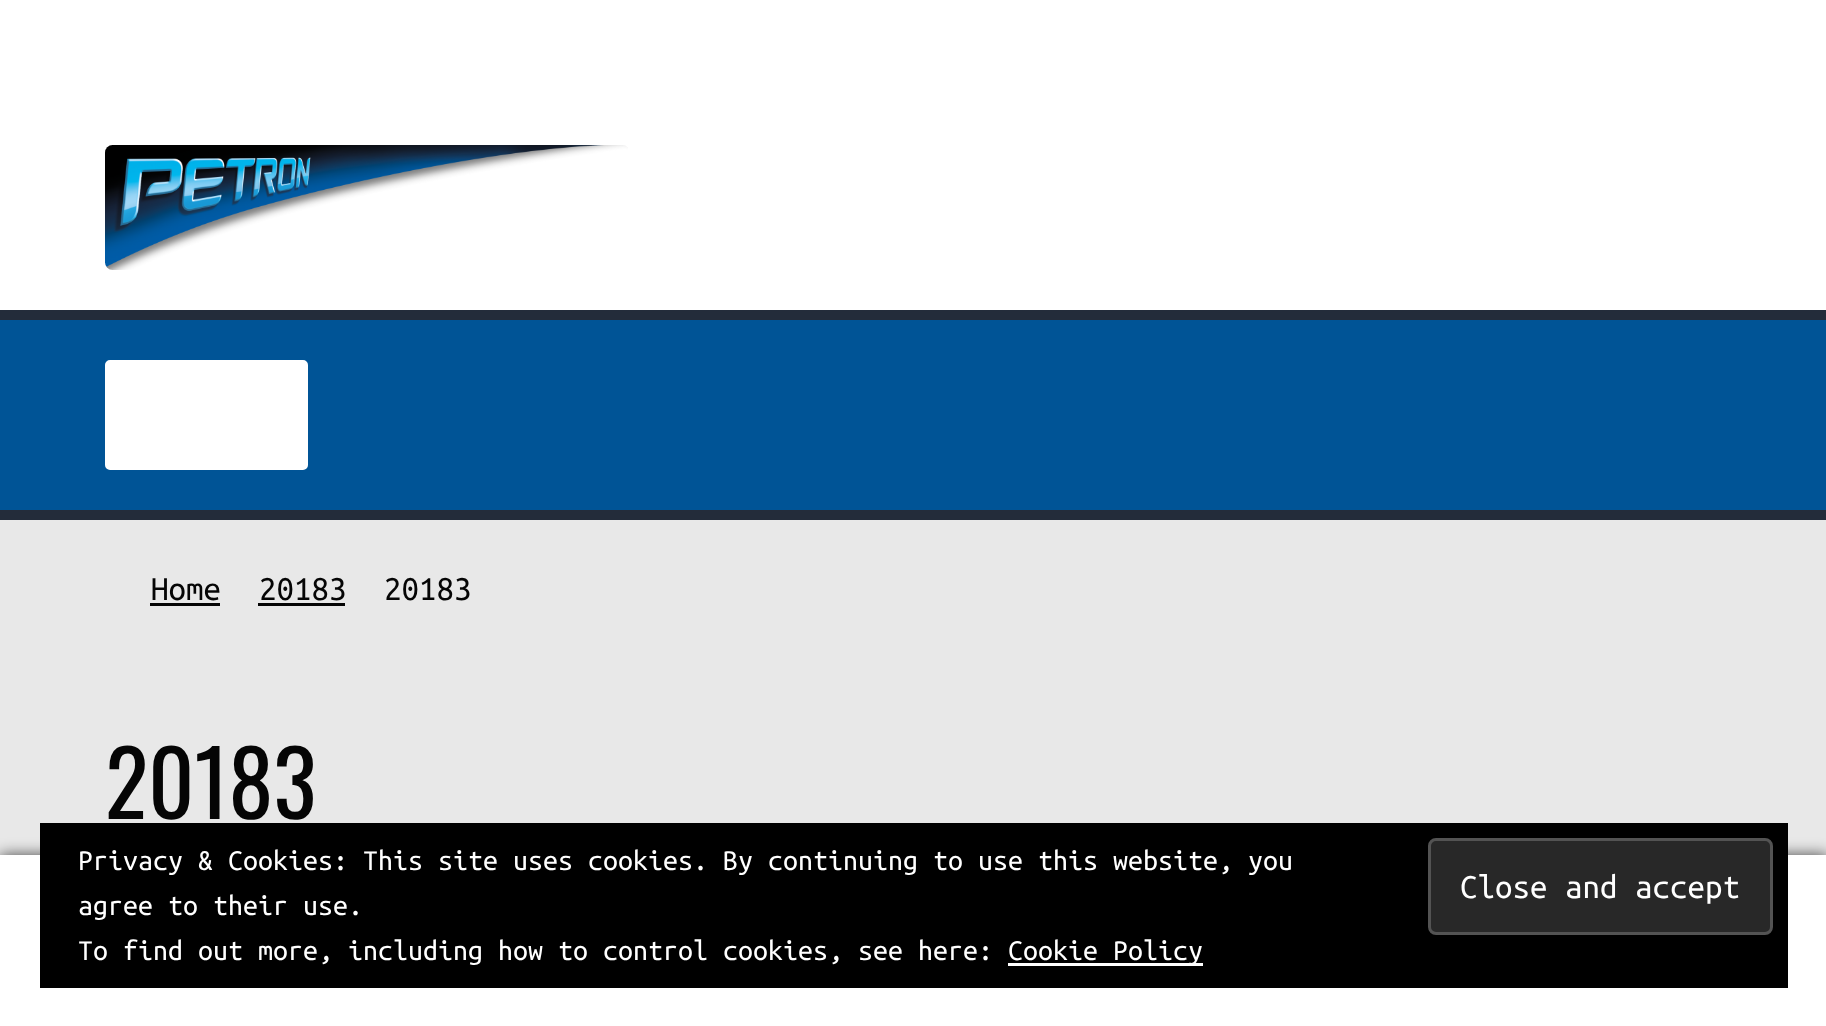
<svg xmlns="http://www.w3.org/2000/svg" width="1826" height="1026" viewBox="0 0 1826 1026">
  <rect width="100%" height="100%" fill="rgb(232,232,232)"/>
  <rect x="0" y="0" width="1826" height="310" fill="rgb(255,255,255)"/>
  <image x="105" y="145" width="523" height="125" href="pic1.png"/>
  <rect x="0" y="320" width="1826" height="190" fill="rgb(0,84,150)"/>
  <rect x="0" y="310" width="1826" height="10" fill="rgb(35,44,58)"/>
  <rect x="0" y="510" width="1826" height="10" fill="rgb(35,44,58)"/>
  <rect x="107.5" y="362.5" width="198" height="105" rx="2.5" fill="rgb(255,255,255)" stroke="rgb(255,255,255)" stroke-width="5"/>
  <text x="151" y="600" font-family="Ubuntu Mono" font-size="35" fill="rgb(5,5,5)">Home</text>
  <rect x="150" y="603" width="70" height="3" fill="rgb(5,5,5)"/>
  <text x="259" y="600" font-family="Ubuntu Mono" font-size="35" fill="rgb(5,5,5)">20183</text>
  <rect x="258" y="603" width="87" height="3" fill="rgb(5,5,5)"/>
  <text x="384" y="600" font-family="Ubuntu Mono" font-size="35" fill="rgb(5,5,5)">20183</text>
  <text x="105" y="819" font-family="Oswald" font-size="90" fill="rgb(5,5,5)">20183</text>
  <rect x="0" y="855" width="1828" height="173" fill="rgba(0,0,0,0.7)" filter="blur(7.5px)"/>
  <rect x="0" y="855" width="1826" height="3" fill="rgb(255,255,255)"/>
  <rect x="0" y="858" width="610" height="168" fill="rgb(255,255,255)"/>
  <rect x="610" y="988" width="608" height="38" fill="rgb(255,255,255)"/>
  <rect x="1218" y="858" width="608" height="168" fill="rgb(255,255,255)"/>
  <rect x="40" y="823" width="1748" height="165" fill="rgb(0,0,0)"/>
  <text x="78" y="870" font-family="Ubuntu Mono" font-size="30" fill="rgb(255,255,255)">Privacy &amp; Cookies: This site uses cookies. By continuing to use this website, you</text>
  <rect x="1429.5" y="839.5" width="342" height="94" rx="6.5" fill="rgb(40,40,40)" stroke="rgb(83,83,83)" stroke-width="3"/>
  <text x="1460" y="898" font-family="Ubuntu Mono" font-size="35" fill="rgb(255,255,255)">Close and accept</text>
  <g font-family="Ubuntu Mono" font-size="30" fill="rgb(255,255,255)">
    <text>
      <tspan x="78" y="915">agree to their use.</tspan>
      <tspan x="78" y="960">To find out more, including how to control cookies, see here:</tspan>
    </text>
  </g>
  <rect x="1008" y="963" width="195" height="3" fill="rgb(255,255,255)"/>
  <text x="1008" y="960" font-family="Ubuntu Mono" font-size="30" fill="rgb(255,255,255)">Cookie Policy</text>
</svg>
